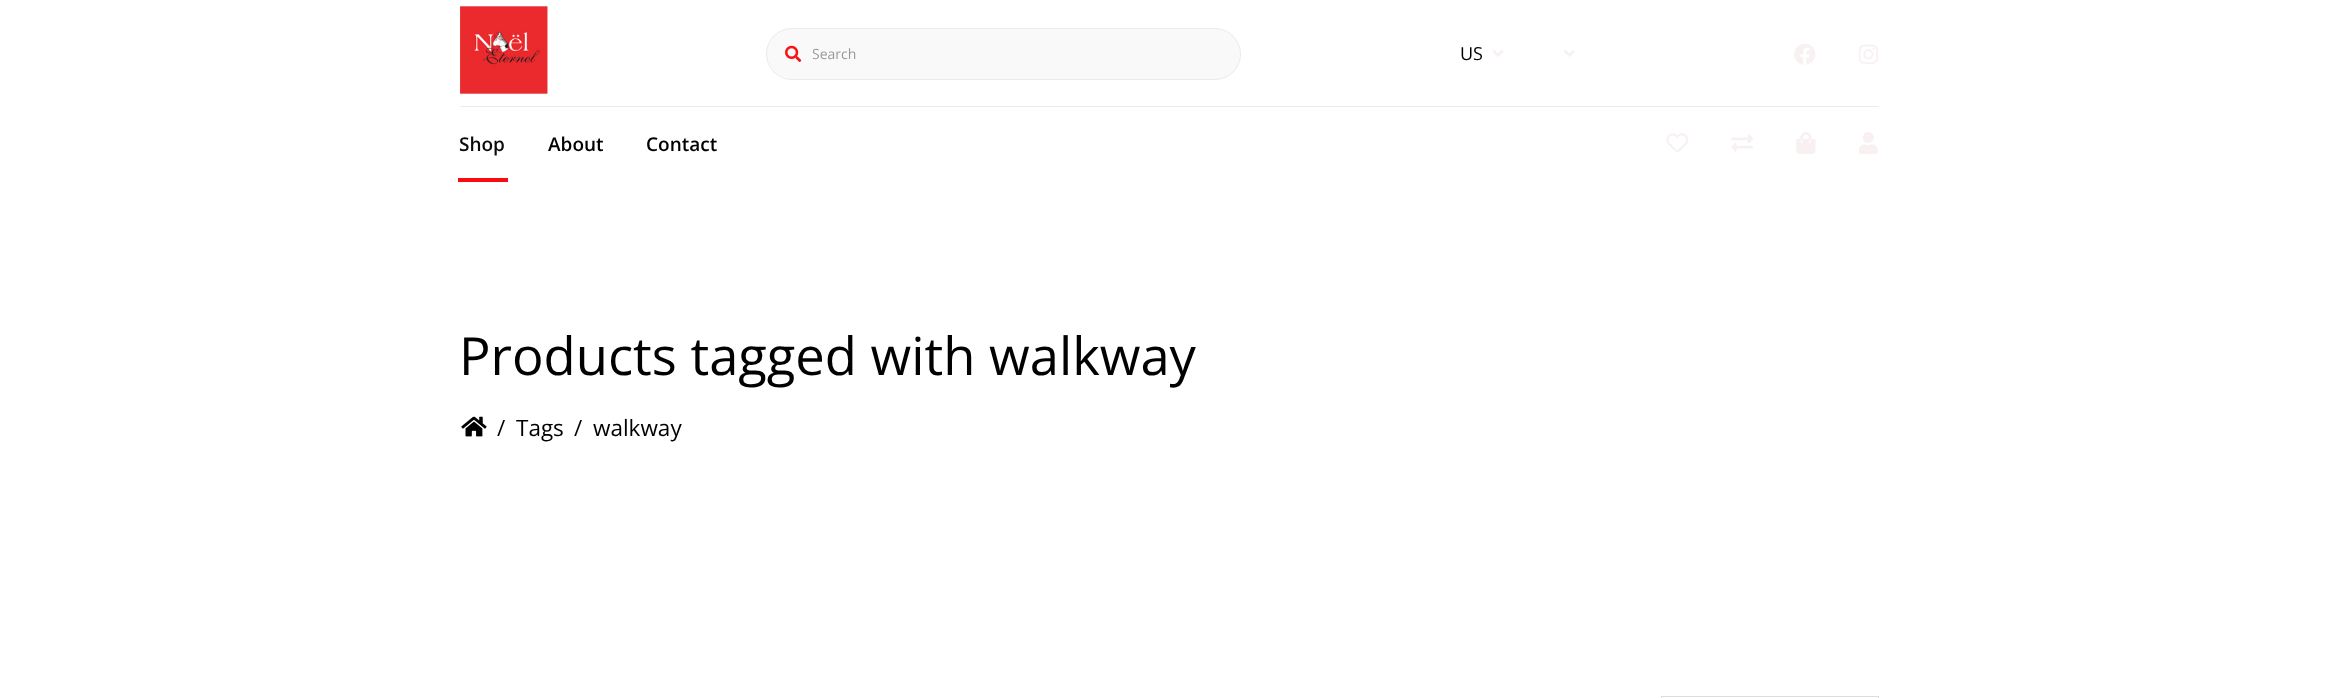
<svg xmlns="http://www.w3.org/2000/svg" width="2337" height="698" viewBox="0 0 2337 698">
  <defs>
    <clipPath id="clip1"><rect x="813" y="44" width="382" height="19"/></clipPath>
  </defs>
  <rect width="100%" height="100%" fill="rgb(255,255,255)"/>
  <rect x="460" y="106" width="1419" height="1" fill="rgb(235,235,235)"/>
  <image x="460" y="6" width="88" height="88" href="pic1.png"/>
  <rect x="766.5" y="28.5" width="474" height="51" rx="25.5" fill="rgb(249,249,249)" stroke="rgb(235,235,235)"/>
  <image x="785" y="45" width="17" height="17" href="pic2.png"/>
  <g clip-path="url(#clip1)">
    <text x="812" y="59" font-family="Open Sans" font-size="14" fill="rgb(153,153,153)">Search</text>
  </g>
  <text x="1460" y="60" font-family="Open Sans" font-size="18" fill="rgb(0,0,0)">US</text>
  <image x="1492" y="50" width="12" height="7" href="pic3.png"/>
  <image x="1564" y="50" width="11" height="7" href="pic4.png"/>
  <image x="1794" y="43" width="22" height="22" href="pic5.png"/>
  <image x="1859" y="44" width="19" height="20" href="pic6.png"/>
  <text x="459" y="151" font-family="Open Sans" font-size="19" font-weight="600" fill="rgb(11,11,11)">Shop</text>
  <rect x="458" y="178" width="50" height="4" fill="rgb(249,11,15)"/>
  <g font-family="Open Sans" font-size="19" font-weight="600" fill="rgb(0,0,0)">
    <text x="548" y="151">About</text>
    <text x="646" y="151">Contact</text>
  </g>
  <image x="1666" y="133" width="22" height="20" href="pic7.png"/>
  <image x="1731" y="134" width="22" height="18" href="pic8.png"/>
  <image x="1796" y="132" width="20" height="22" href="pic9.png"/>
  <image x="1859" y="132" width="19" height="22" href="pic10.png"/>
  <text x="459" y="375" font-family="Open Sans" font-size="52.5" fill="rgb(0,0,0)">Products tagged with walkway</text>
  <image x="461" y="416" width="26" height="21" href="pic11.png"/>
  <g font-family="Open Sans" font-size="22.5" fill="rgb(0,0,0)">
    <text x="497" y="436">/</text>
    <text x="516" y="436">Tags</text>
    <text x="574" y="436">/</text>
    <text x="593" y="436">walkway</text>
  </g>
  <rect x="1661.5" y="696.5" width="217" height="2" fill="none" stroke="rgb(221,221,221)"/>
</svg>
